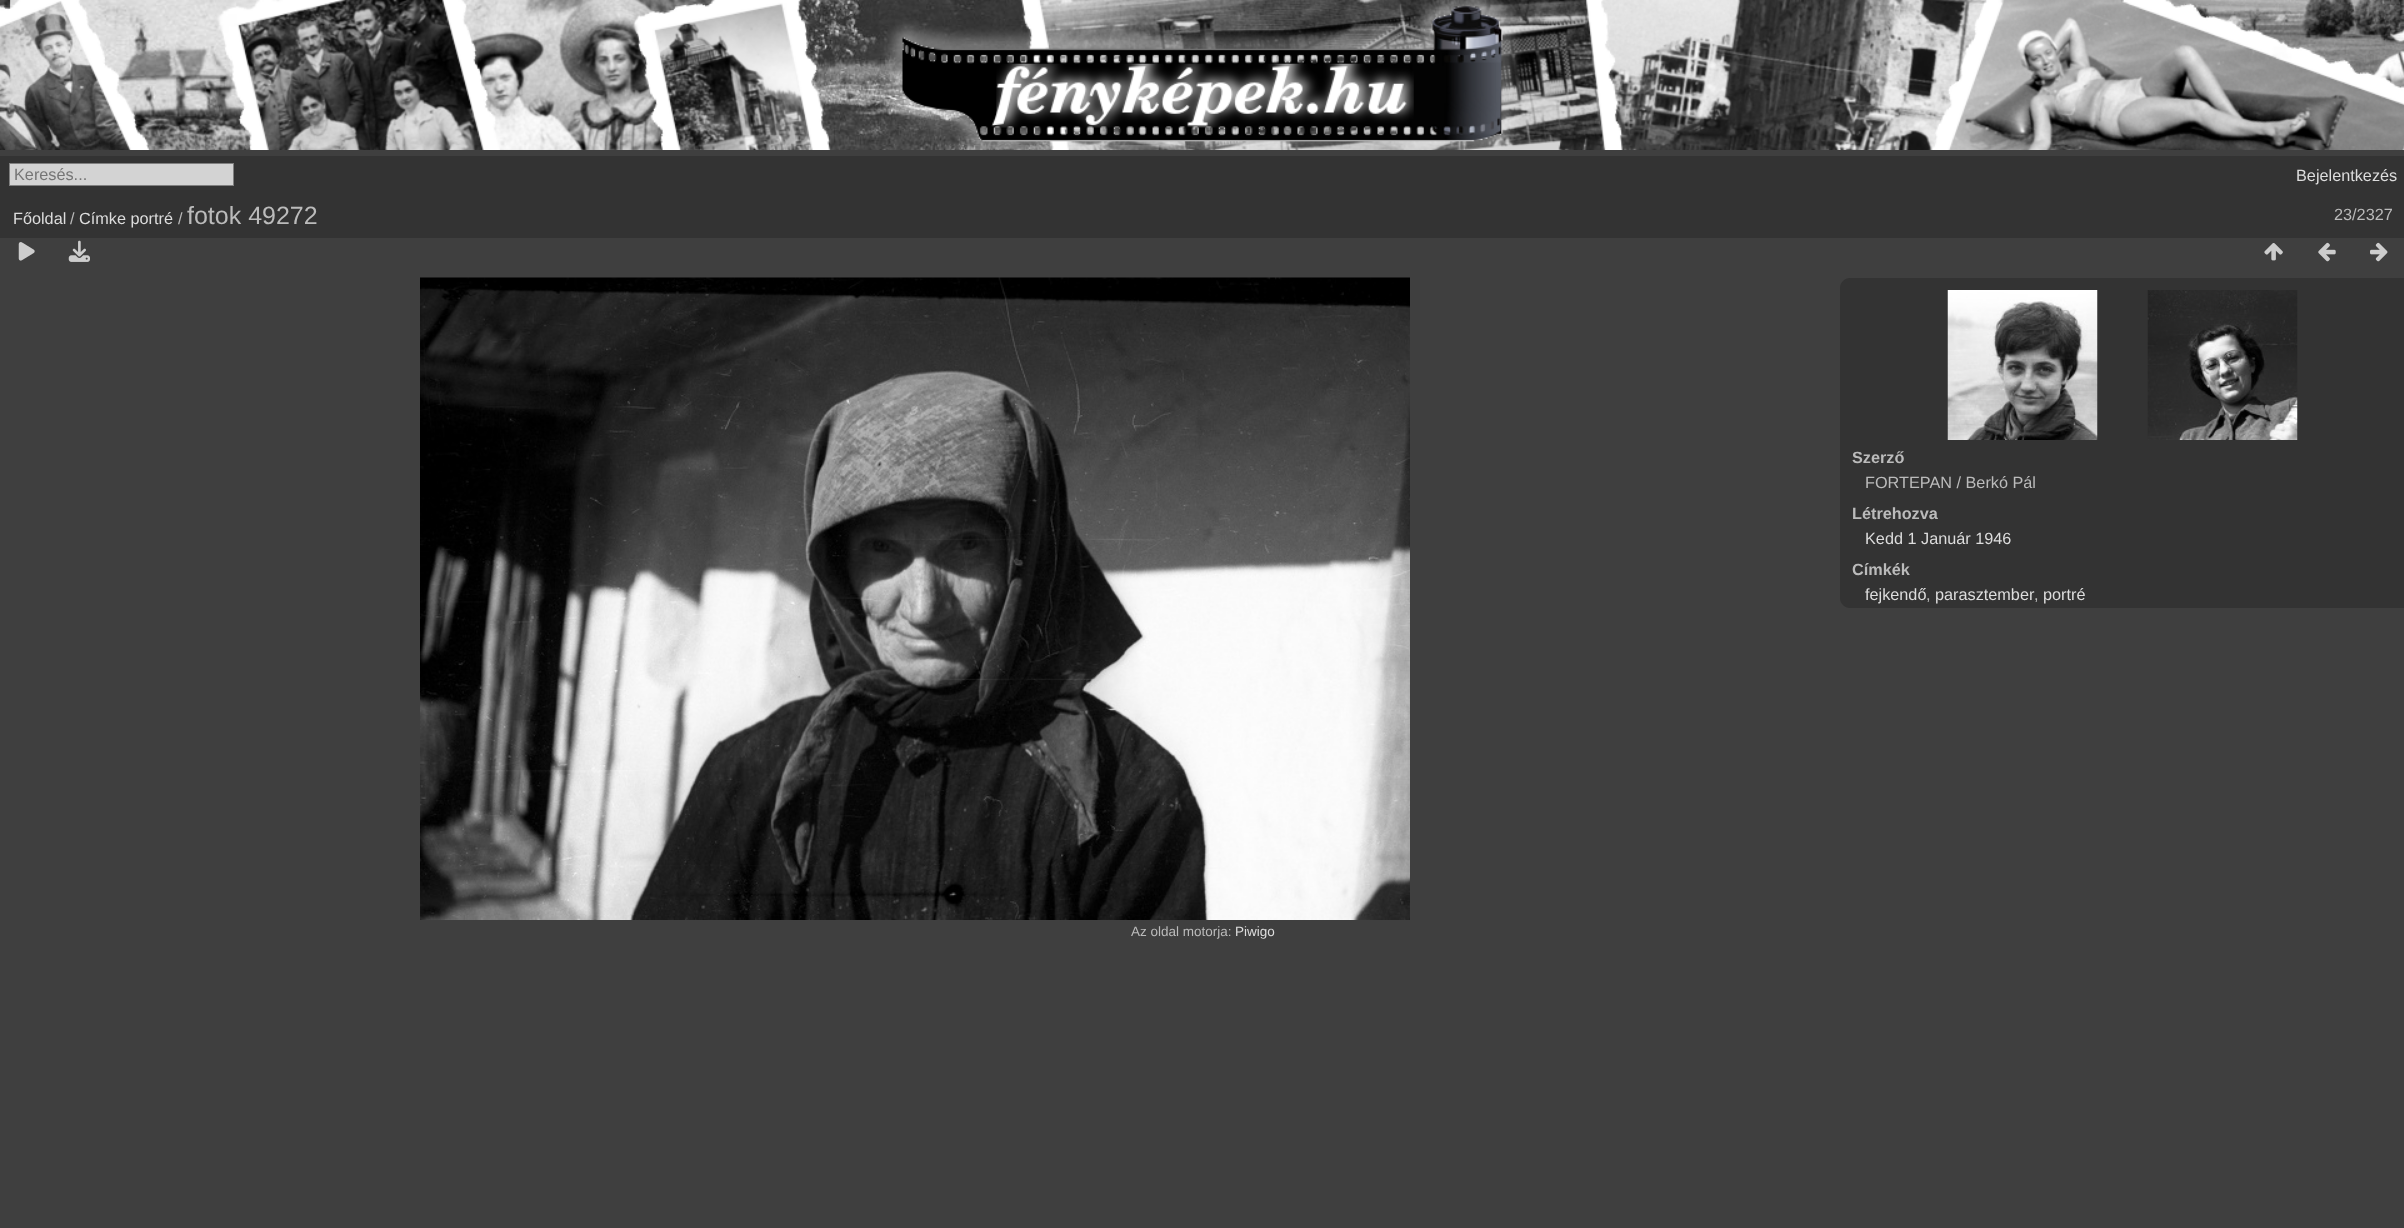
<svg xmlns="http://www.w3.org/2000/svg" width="2404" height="1228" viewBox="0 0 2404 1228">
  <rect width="100%" height="100%" fill="rgb(63,63,63)"/>
  <rect x="498" y="139" width="1068" height="11" fill="rgb(212,212,212)"/>
  <image x="0" y="0" width="2404" height="150" href="pic1.png"/>
  <rect x="0" y="156" width="2404" height="82" fill="rgb(51,51,51)"/>
  <rect x="9.5" y="163.5" width="224" height="22" fill="rgb(211,211,211)" stroke="rgb(128,128,128)"/>
  <text x="14" y="180" font-family="Liberation Sans" font-size="16.25" fill="rgb(117,117,117)">Keresés...</text>
  <g font-family="Liberation Sans" font-size="16.25" fill="rgb(221,221,221)">
    <text x="2296" y="181">Bejelentkezés</text>
    <text x="13" y="224">Főoldal</text>
  </g>
  <text x="70" y="224" font-family="Liberation Sans" font-size="16.25" fill="rgb(187,187,187)">/</text>
  <text x="79" y="224" font-family="Liberation Sans" font-size="16.25" fill="rgb(221,221,221)">Címke portré</text>
  <text x="178" y="224" font-family="Liberation Sans" font-size="16.25" fill="rgb(187,187,187)">/</text>
  <text x="187" y="224" font-family="Liberation Sans" font-size="25" fill="rgb(187,187,187)">fotok 49272</text>
  <text x="2334" y="220" font-family="Liberation Sans" font-size="16.25" fill="rgb(187,187,187)">23/2327</text>
  <image x="18" y="242" width="17" height="19" href="pic2.png"/>
  <image x="68" y="240" width="22" height="22" href="pic3.png"/>
  <image x="2264" y="243" width="19" height="18" href="pic4.png"/>
  <image x="2318" y="242" width="18" height="20" href="pic5.png"/>
  <image x="2370" y="242" width="18" height="20" href="pic6.png"/>
  <image x="420" y="277" width="990" height="643" href="pic7.png"/>
  <path d="M1850 278H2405V608H1850C1844.5 608 1840 603.5 1840 598V288C1840 282.5 1844.5 278 1850 278Z" fill="rgb(51,51,51)"/>
  <image x="1947" y="290" width="151" height="150" href="pic8.png"/>
  <image x="2147" y="290" width="151" height="150" href="pic9.png"/>
  <text x="1852" y="463" font-family="Liberation Sans" font-size="16.25" font-weight="bold" fill="rgb(187,187,187)">Szerző</text>
  <text x="1865" y="488" font-family="Liberation Sans" font-size="16.25" fill="rgb(187,187,187)">FORTEPAN / Berkó Pál</text>
  <text x="1852" y="519" font-family="Liberation Sans" font-size="16.25" font-weight="bold" fill="rgb(187,187,187)">Létrehozva</text>
  <text x="1865" y="544" font-family="Liberation Sans" font-size="16.25" fill="rgb(221,221,221)">Kedd 1 Január 1946</text>
  <text x="1852" y="575" font-family="Liberation Sans" font-size="16.25" font-weight="bold" fill="rgb(187,187,187)">Címkék</text>
  <text x="1865" y="600" font-family="Liberation Sans" font-size="16.25" fill="rgb(221,221,221)">fejkendő</text>
  <text x="1926" y="600" font-family="Liberation Sans" font-size="16.25" fill="rgb(187,187,187)">,</text>
  <text x="1935" y="600" font-family="Liberation Sans" font-size="16.25" fill="rgb(221,221,221)">parasztember</text>
  <text x="2034" y="600" font-family="Liberation Sans" font-size="16.25" fill="rgb(187,187,187)">,</text>
  <text x="2043" y="600" font-family="Liberation Sans" font-size="16.25" fill="rgb(221,221,221)">portré</text>
  <text x="1131" y="936" font-family="Liberation Sans" font-size="13.5" fill="rgb(187,187,187)">Az oldal motorja:</text>
  <text x="1235" y="936" font-family="Liberation Sans" font-size="13.5" fill="rgb(221,221,221)">Piwigo</text>
</svg>
